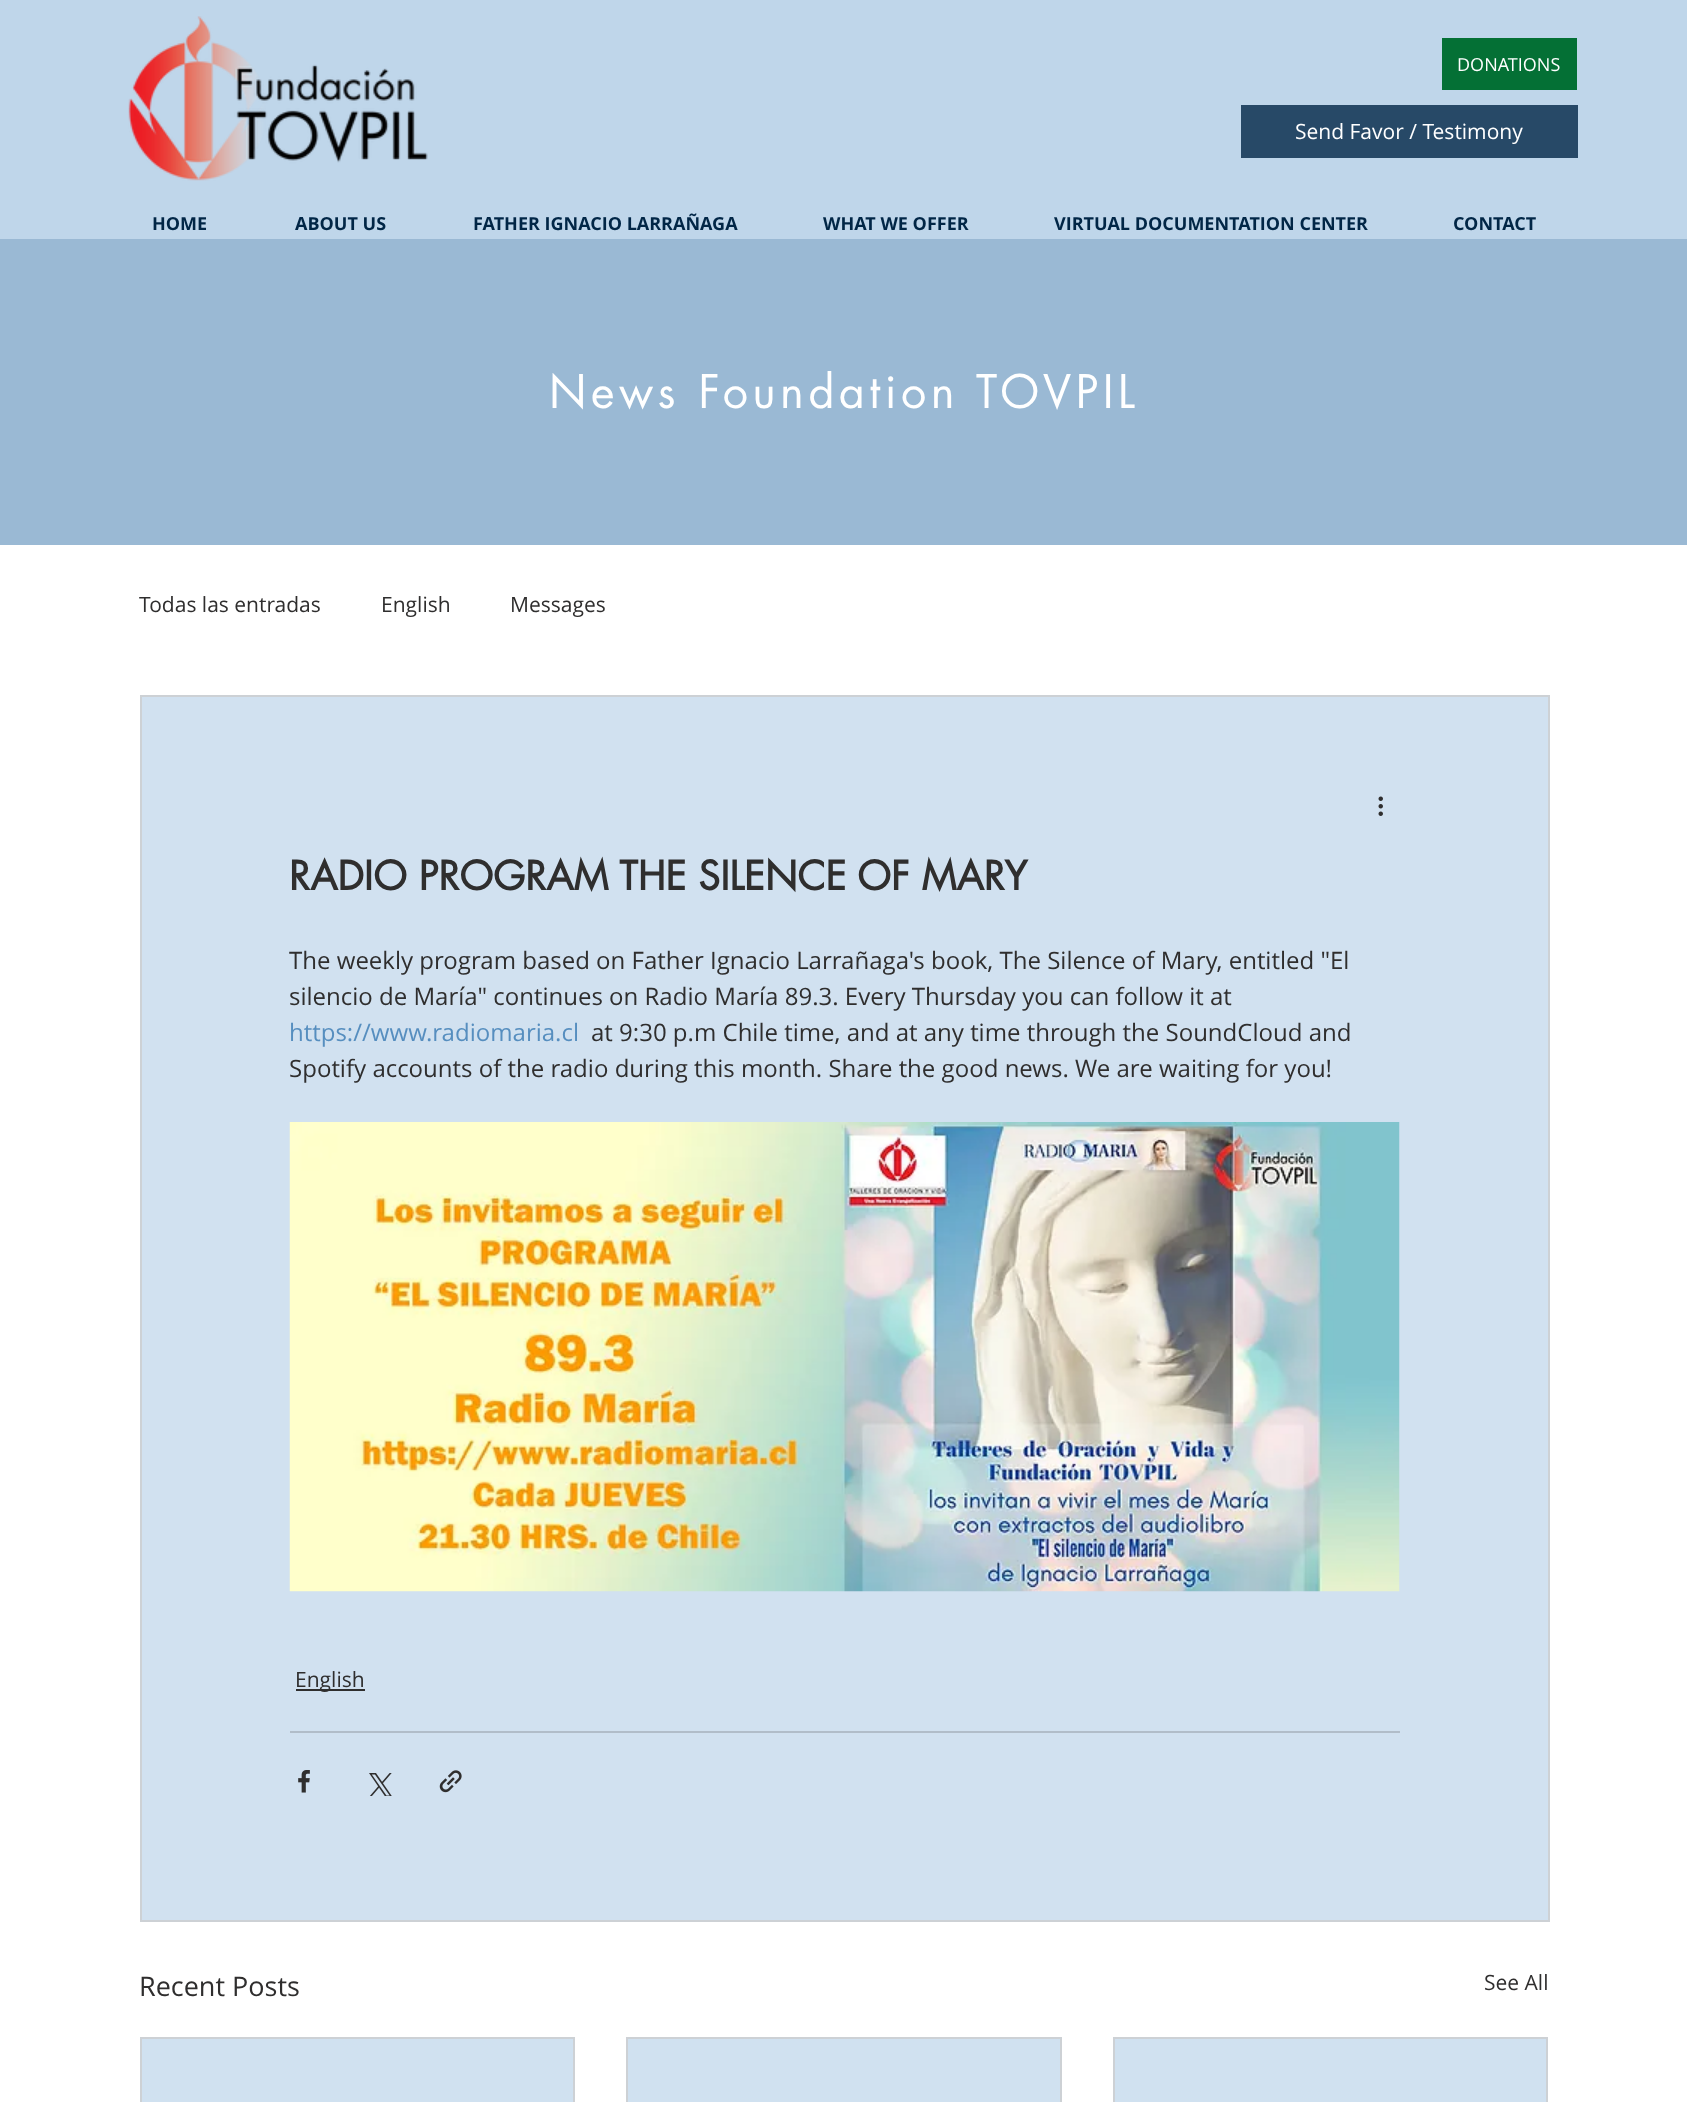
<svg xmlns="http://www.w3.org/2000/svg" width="1687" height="2102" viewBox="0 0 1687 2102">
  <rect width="100%" height="100%" fill="rgb(255,255,255)"/>
  <rect x="0" y="0" width="1687" height="239" fill="rgb(191,214,234)"/>
  <image x="128" y="16" width="300" height="165" href="pic1.png"/>
  <rect x="1442" y="38" width="135" height="52" fill="rgb(4,112,53)"/>
  <text x="1457" y="71" font-family="Open Sans" font-size="18" fill="rgb(255,255,255)">DONATIONS</text>
  <rect x="1241" y="105" width="337" height="53" fill="rgb(39,73,103)"/>
  <text x="1295" y="139" font-family="Open Sans" font-size="21" fill="rgb(255,255,255)">Send Favor / Testimony</text>
  <g font-family="Open Sans" font-size="18" font-weight="bold" fill="rgb(1,38,70)">
    <text x="152" y="230">HOME</text>
    <text x="295" y="230">ABOUT US</text>
    <text x="473" y="230">FATHER IGNACIO LARRAÑAGA</text>
    <text x="823" y="230">WHAT WE OFFER</text>
    <text x="1054" y="230">VIRTUAL DOCUMENTATION CENTER</text>
    <text x="1453" y="230">CONTACT</text>
  </g>
  <rect x="0" y="239" width="1687" height="306" fill="rgb(154,185,212)"/>
  <text x="549" y="408" font-family="futura" font-size="45" letter-spacing="4.5" fill="rgb(255,255,255)">News Foundation TOVPIL</text>
  <g font-family="Open Sans" font-size="21" fill="rgb(47,46,46)">
    <text x="139" y="612">Todas las entradas</text>
    <text x="381" y="612">English</text>
    <text x="510" y="612">Messages</text>
  </g>
  <rect x="141" y="696" width="1408" height="1225" fill="rgb(209,225,240)" stroke="rgb(205,209,213)" stroke-width="2"/>
  <image x="1378" y="796" width="5" height="20" href="pic2.png"/>
  <text x="289" y="890" font-family="futura" font-size="39" font-weight="bold" fill="rgb(47,46,46)">RADIO PROGRAM THE SILENCE OF MARY</text>
  <g font-family="Open Sans" font-size="24" fill="rgb(47,46,46)">
    <text>
      <tspan x="289" y="969">The weekly program based on Father Ignacio Larrañaga's book, The Silence of Mary, entitled "El</tspan>
      <tspan x="289" y="1005">silencio de María" continues on Radio María 89.3. Every Thursday you can follow it at</tspan>
    </text>
  </g>
  <text x="289" y="1041" font-family="Open Sans" font-size="24" fill="rgb(86,142,191)">https://www.radiomaria.cl</text>
  <g font-family="Open Sans" font-size="24" fill="rgb(47,46,46)">
    <text x="591" y="1041">at 9:30 p.m Chile time, and at any time through the SoundCloud and</text>
    <text x="289" y="1077">Spotify accounts of the radio during this month. Share the good news. We are waiting for you!</text>
  </g>
  <image x="289" y="1122" width="1111" height="470" href="pic3.png"/>
  <rect x="296" y="1689" width="69" height="2" fill="rgb(47,46,46)"/>
  <text x="295" y="1687" font-family="Open Sans" font-size="21" fill="rgb(47,46,46)">English</text>
  <rect x="290" y="1731" width="1110" height="2" fill="rgb(177,189,201)"/>
  <image x="298" y="1770" width="12" height="23" href="pic4.png"/>
  <image x="369" y="1773" width="23" height="23" href="pic5.png"/>
  <image x="439" y="1770" width="23" height="23" href="pic6.png"/>
  <text x="139" y="1996" font-family="Open Sans" font-size="27" fill="rgb(47,46,46)">Recent Posts</text>
  <text x="1484" y="1990" font-family="Open Sans" font-size="21" fill="rgb(47,46,46)">See All</text>
  <rect x="141" y="2038" width="433" height="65" fill="rgb(208,225,240)" stroke="rgb(205,209,213)" stroke-width="2"/>
  <rect x="627" y="2038" width="434" height="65" fill="rgb(208,225,240)" stroke="rgb(205,209,213)" stroke-width="2"/>
  <rect x="1114" y="2038" width="433" height="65" fill="rgb(208,225,240)" stroke="rgb(205,209,213)" stroke-width="2"/>
</svg>
